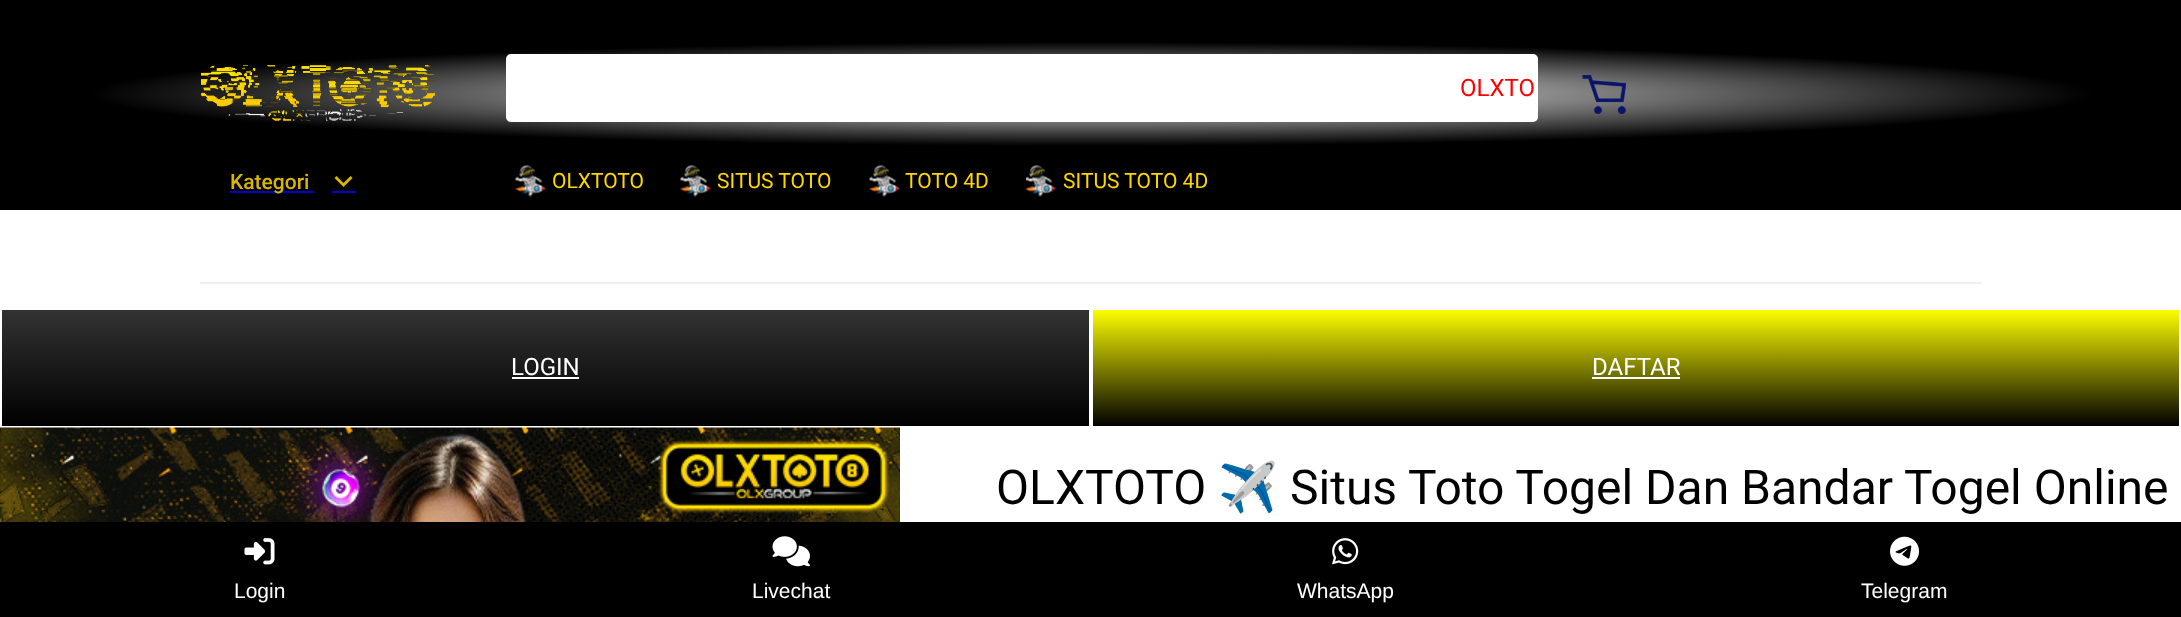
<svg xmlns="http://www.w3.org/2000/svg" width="2181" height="617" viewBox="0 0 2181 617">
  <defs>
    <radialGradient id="g1" gradientUnits="userSpaceOnUse" cx="0" cy="0" r="1" gradientTransform="matrix(1542 0 0 80 1091 94)"><stop offset="0" stop-color="rgb(255,255,255)"/><stop offset="0.65" stop-color="rgb(0,0,0)"/></radialGradient>
    <linearGradient id="g2" gradientUnits="userSpaceOnUse" x1="545" y1="309" x2="545" y2="426"><stop offset="0" stop-color="rgb(51,51,51)"/><stop offset="1" stop-color="rgb(0,0,0)"/></linearGradient>
    <linearGradient id="g3" gradientUnits="userSpaceOnUse" x1="1636" y1="309" x2="1636" y2="426"><stop offset="0" stop-color="rgb(255,255,0)"/><stop offset="1" stop-color="rgb(0,0,0)"/></linearGradient>
  </defs>
  <rect width="100%" height="100%" fill="rgb(255,255,255)"/>
  <rect x="0" y="0" width="2181" height="38" fill="rgb(0,0,0)"/>
  <rect x="0" y="38" width="2181" height="112" fill="url(#g1)"/>
  <image x="201" y="65" width="234" height="56" href="pic1.png"/>
  <rect x="506" y="54" width="1032" height="68" rx="5" fill="rgb(255,255,255)"/>
  <text x="1460" y="96" font-family="Roboto" font-size="24" fill="rgb(255,0,0)">OLXTO</text>
  <image x="1582" y="75" width="44" height="39" href="pic2.png"/>
  <rect x="0" y="150" width="2181" height="60" fill="rgb(0,0,0)"/>
  <rect x="230" y="191" width="84" height="2" fill="rgb(0,0,202)"/>
  <text x="230" y="189" font-family="Roboto" font-size="21" font-weight="500" fill="rgb(217,183,0)">Kategori</text>
  <rect x="332" y="191" width="24" height="2" fill="rgb(0,0,202)"/>
  <path d="M350.5 176L352.5 178L343.5 187L334.5 178L336.5 176L343.5 183Z" fill="rgb(217,183,0)"/>
  <image x="515" y="165" width="32" height="32" href="pic3.png"/>
  <text x="552" y="188" font-family="Roboto" font-size="21" fill="rgb(255,215,0)">OLXTOTO</text>
  <image x="679" y="165" width="33" height="32" href="pic4.png"/>
  <text x="717" y="188" font-family="Roboto" font-size="21" fill="rgb(255,215,0)">SITUS TOTO</text>
  <image x="868" y="165" width="33" height="32" href="pic4.png"/>
  <text x="905" y="188" font-family="Roboto" font-size="21" fill="rgb(255,215,0)">TOTO 4D</text>
  <image x="1024" y="165" width="33" height="32" href="pic5.png"/>
  <text x="1063" y="188" font-family="Roboto" font-size="21" fill="rgb(255,215,0)">SITUS TOTO 4D</text>
  <rect x="200" y="282" width="1782" height="2" fill="rgb(239,240,245)"/>
  <rect x="2" y="310" width="1087" height="116" fill="url(#g2)"/>
  <text x="511" y="375" font-family="Roboto" font-size="24" fill="rgb(255,255,255)">LOGIN</text>
  <rect x="512" y="377" width="67" height="2" fill="rgb(255,255,255)"/>
  <rect x="1093" y="310" width="1086" height="116" fill="url(#g3)"/>
  <text x="1592" y="375" font-family="Roboto" font-size="24" fill="rgb(255,255,255)">DAFTAR</text>
  <rect x="1592" y="377" width="88" height="2" fill="rgb(255,255,255)"/>
  <image x="0" y="427" width="900" height="95" href="pic6.png"/>
  <text x="996" y="504" font-family="Roboto" font-size="48" fill="rgb(0,0,0)">OLXTOTO</text>
  <text x="1218" y="504" font-family="Noto Color Emoji" font-size="48" font-weight="bold" fill="rgb(0,0,0)">✈️</text>
  <text x="1290" y="504" font-family="Roboto" font-size="48" fill="rgb(0,0,0)">Situs Toto Togel Dan Bandar Togel Online</text>
  <rect x="0" y="522" width="2181" height="95" fill="rgb(0,0,0)"/>
  <image x="244" y="538" width="31" height="27" href="pic7.png"/>
  <text x="234" y="598" font-family="Liberation Sans" font-size="21" fill="rgb(255,255,255)">Login</text>
  <image x="772" y="536" width="38" height="31" href="pic8.png"/>
  <text x="752" y="598" font-family="Liberation Sans" font-size="21" fill="rgb(255,255,255)">Livechat</text>
  <image x="1332" y="538" width="27" height="27" href="pic9.png"/>
  <text x="1297" y="598" font-family="Liberation Sans" font-size="21" fill="rgb(255,255,255)">WhatsApp</text>
  <image x="1890" y="536" width="30" height="30" href="pic10.png"/>
  <text x="1861" y="598" font-family="Liberation Sans" font-size="21" fill="rgb(255,255,255)">Telegram</text>
</svg>
